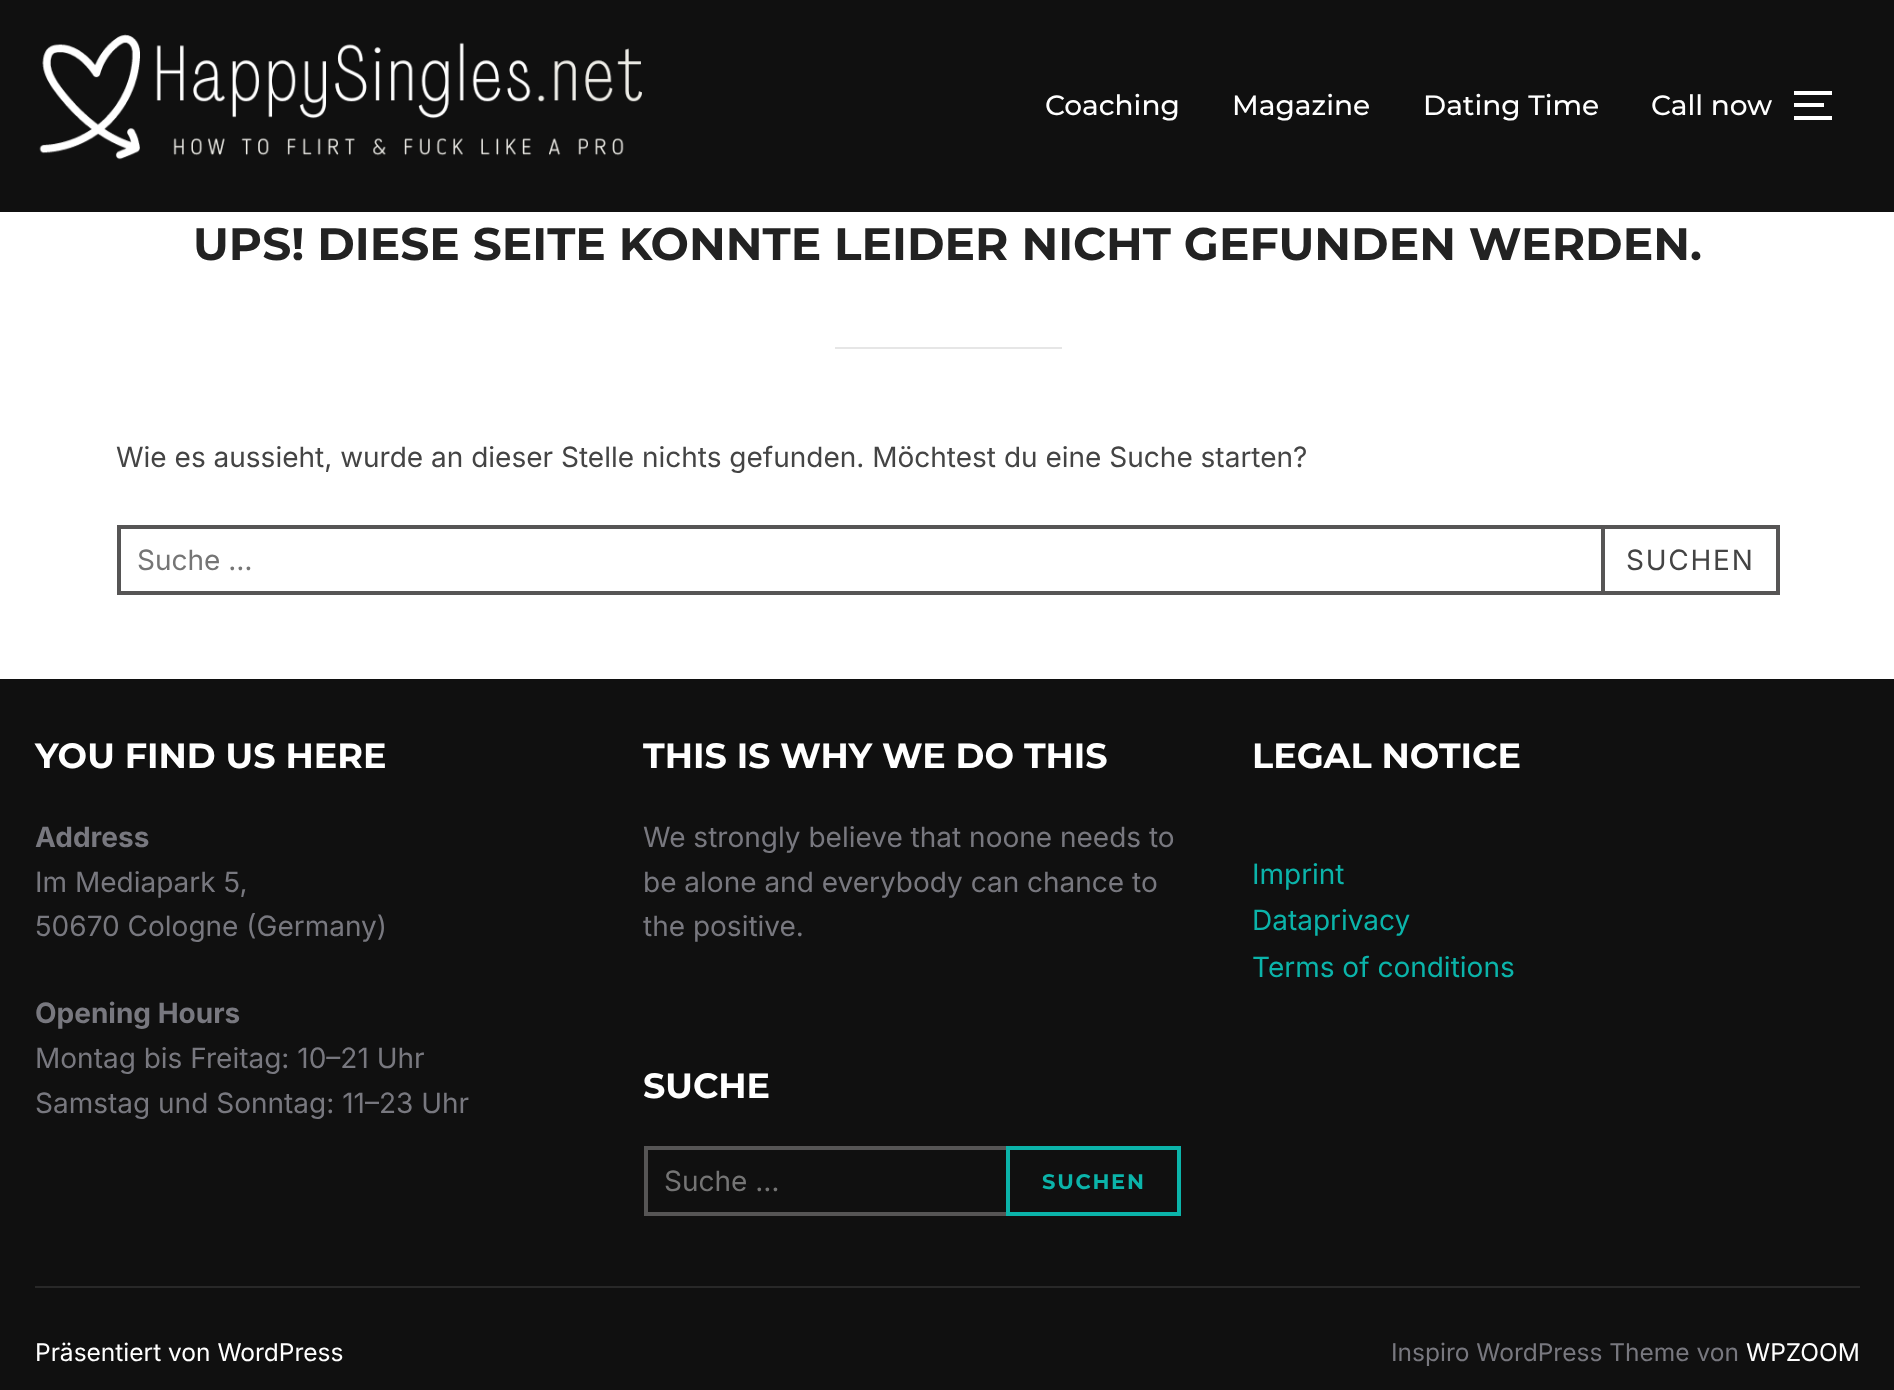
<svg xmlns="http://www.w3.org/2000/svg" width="1894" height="1390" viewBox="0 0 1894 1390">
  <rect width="100%" height="100%" fill="rgb(255,255,255)"/>
  <rect x="0" y="0" width="1894" height="212" fill="rgb(16,16,16)"/>
  <image x="39" y="34" width="603" height="126" href="pic1.png"/>
  <g font-family="Montserrat" font-size="28" font-weight="500" fill="rgb(255,255,255)">
    <text x="1045" y="115">Coaching</text>
    <text x="1232" y="115">Magazine</text>
    <text x="1423" y="115">Dating Time</text>
    <text x="1651" y="115">Call now</text>
  </g>
  <rect x="1794" y="91" width="38" height="4" fill="rgb(255,255,255)"/>
  <rect x="1794" y="103" width="30" height="4" fill="rgb(255,255,255)"/>
  <rect x="1794" y="116" width="38" height="4" fill="rgb(255,255,255)"/>
  <text x="193" y="260" font-family="Montserrat" font-size="45.5" font-weight="bold" fill="rgb(34,34,34)">UPS! DIESE SEITE KONNTE LEIDER NICHT GEFUNDEN WERDEN.</text>
  <rect x="835" y="347" width="227" height="2" fill="rgb(230,230,230)"/>
  <text x="116" y="467" font-family="Inter" font-size="28" fill="rgb(68,68,68)">Wie es aussieht, wurde an dieser Stelle nichts gefunden. Möchtest du eine Suche starten?</text>
  <rect x="119" y="527" width="1659" height="66" fill="none" stroke="rgb(86,85,85)" stroke-width="4"/>
  <text x="137" y="570" font-family="Inter" font-size="28" fill="rgb(117,117,117)">Suche …</text>
  <rect x="1603" y="527" width="175" height="66" fill="none" stroke="rgb(86,85,85)" stroke-width="4"/>
  <text x="1626" y="570" font-family="Inter" font-size="28" letter-spacing="1.75" fill="rgb(68,68,68)">SUCHEN</text>
  <rect x="0" y="679" width="1894" height="711" fill="rgb(16,16,16)"/>
  <text x="35" y="768" font-family="Montserrat" font-size="35" font-weight="bold" fill="rgb(255,255,255)">YOU FIND US HERE</text>
  <text x="35" y="847" font-family="Inter" font-size="28" font-weight="bold" fill="rgb(120,120,127)">Address</text>
  <g font-family="Inter" font-size="28" fill="rgb(120,120,127)">
    <text>
      <tspan x="35" y="892">Im Mediapark 5,</tspan>
      <tspan x="35" y="936">50670 Cologne (Germany)</tspan>
    </text>
  </g>
  <text x="35" y="1023" font-family="Inter" font-size="28" font-weight="bold" fill="rgb(120,120,127)">Opening Hours</text>
  <g font-family="Inter" font-size="28" fill="rgb(120,120,127)">
    <text>
      <tspan x="35" y="1068">Montag bis Freitag: 10–21 Uhr</tspan>
      <tspan x="35" y="1113">Samstag und Sonntag: 11–23 Uhr</tspan>
    </text>
  </g>
  <text x="643" y="768" font-family="Montserrat" font-size="35" font-weight="bold" fill="rgb(255,255,255)">THIS IS WHY WE DO THIS</text>
  <g font-family="Inter" font-size="28" fill="rgb(120,120,127)">
    <text>
      <tspan x="643" y="847">We strongly believe that noone needs to</tspan>
      <tspan x="643" y="892">be alone and everybody can chance to</tspan>
      <tspan x="643" y="936">the positive.</tspan>
    </text>
  </g>
  <text x="643" y="1098" font-family="Montserrat" font-size="35" font-weight="bold" fill="rgb(255,255,255)">SUCHE</text>
  <rect x="646" y="1148" width="533" height="66" fill="none" stroke="rgb(86,85,85)" stroke-width="4"/>
  <text x="664" y="1191" font-family="Inter" font-size="28" fill="rgb(117,117,117)">Suche …</text>
  <rect x="1008" y="1148" width="171" height="66" fill="none" stroke="rgb(11,180,170)" stroke-width="4"/>
  <text x="1042" y="1189" font-family="Montserrat" font-size="21" font-weight="bold" letter-spacing="1.75" fill="rgb(11,180,170)">SUCHEN</text>
  <text x="1252" y="768" font-family="Montserrat" font-size="35" font-weight="bold" fill="rgb(255,255,255)">LEGAL NOTICE</text>
  <g font-family="Inter" font-size="28" fill="rgb(11,180,170)">
    <text>
      <tspan x="1252" y="884">Imprint</tspan>
      <tspan x="1252" y="930">Dataprivacy</tspan>
      <tspan x="1252" y="977">Terms of conditions</tspan>
    </text>
  </g>
  <rect x="35" y="1286" width="1825" height="2" fill="rgb(40,40,40)"/>
  <text x="35" y="1361" font-family="Inter" font-size="24.5" fill="rgb(255,255,255)">Präsentiert von WordPress</text>
  <text x="1391" y="1361" font-family="Inter" font-size="24.5" fill="rgb(120,120,127)">Inspiro WordPress Theme von</text>
  <text x="1746" y="1361" font-family="Inter" font-size="24.5" fill="rgb(255,255,255)">WPZOOM</text>
</svg>
